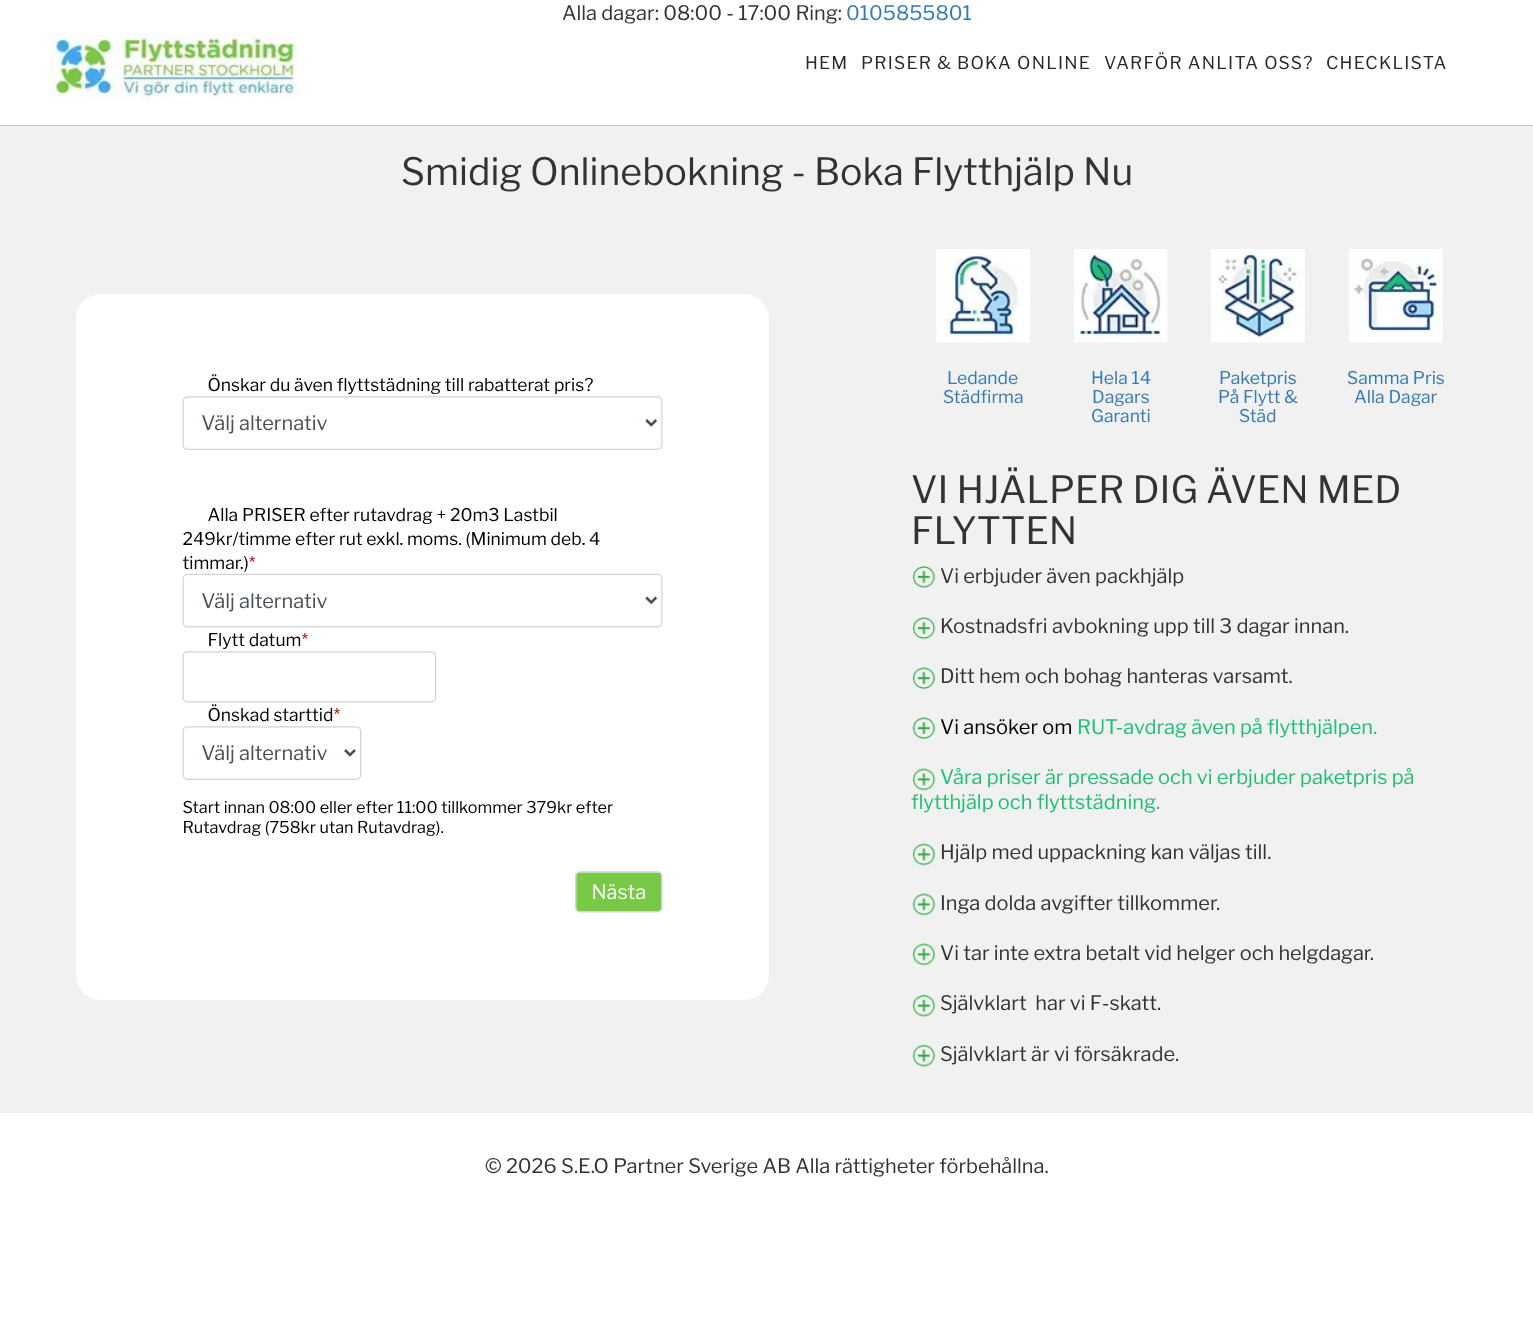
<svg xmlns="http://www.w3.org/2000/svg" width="1533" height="1339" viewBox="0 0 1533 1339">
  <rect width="100%" height="100%" fill="rgb(255,255,255)"/>
  <text x="562" y="20" font-family="Libre Franklin" font-size="20" fill="rgb(51,51,51)">Alla dagar: 08:00 - 17:00 Ring:</text>
  <text x="846" y="20" font-family="Libre Franklin" font-size="20" fill="rgb(51,122,183)">0105855801</text>
  <rect x="0" y="125" width="1533" height="1" fill="rgb(191,191,191)"/>
  <image x="50" y="33" width="250" height="67" href="pic1.png"/>
  <g font-family="Libre Franklin" font-size="17.5" letter-spacing="1.25" fill="rgb(41,41,41)">
    <text x="805" y="69">HEM</text>
    <text x="861" y="69">PRISER &amp; BOKA ONLINE</text>
    <text x="1104" y="69">VARFÖR ANLITA OSS?</text>
    <text x="1326" y="69">CHECKLISTA</text>
  </g>
  <rect x="0" y="126" width="1533" height="987" fill="rgb(241,241,241)"/>
  <text x="401" y="185" font-family="Libre Franklin" font-size="37.5" fill="rgb(51,51,51)">Smidig Onlinebokning - Boka Flytthjälp Nu</text>
  <rect x="76" y="294" width="693" height="706" rx="25" fill="rgb(255,255,255)"/>
  <image x="182" y="374" width="481" height="539" href="pic2.png"/>
  <image x="936" y="249" width="94" height="94" href="pic3.png"/>
  <g font-family="Libre Franklin" font-size="17.5" fill="rgb(51,122,183)">
    <text x="947" y="384">Ledande</text>
    <text x="943" y="403">Städfirma</text>
  </g>
  <image x="1074" y="249" width="94" height="94" href="pic4.png"/>
  <g font-family="Libre Franklin" font-size="17.5" fill="rgb(51,122,183)">
    <text x="1091" y="384">Hela 14</text>
    <text x="1092" y="403">Dagars</text>
    <text x="1091" y="422">Garanti</text>
  </g>
  <image x="1211" y="249" width="94" height="94" href="pic5.png"/>
  <g font-family="Libre Franklin" font-size="17.5" fill="rgb(51,122,183)">
    <text x="1219" y="384">Paketpris</text>
    <text x="1218" y="403">På Flytt &amp;</text>
    <text x="1239" y="422">Städ</text>
  </g>
  <image x="1349" y="249" width="94" height="94" href="pic6.png"/>
  <g font-family="Libre Franklin" font-size="17.5" fill="rgb(51,122,183)">
    <text x="1347" y="384">Samma Pris</text>
    <text x="1354" y="403">Alla Dagar</text>
  </g>
  <g font-family="Libre Franklin" font-size="37.5" fill="rgb(51,51,51)">
    <text>
      <tspan x="911" y="503">VI HJÄLPER DIG ÄVEN MED</tspan>
      <tspan x="911" y="544">FLYTTEN</tspan>
    </text>
  </g>
  <image x="912" y="566" width="24" height="22" href="pic7.png"/>
  <text x="940" y="583" font-family="Libre Franklin" font-size="20" fill="rgb(51,51,51)">Vi erbjuder även packhjälp</text>
  <image x="912" y="617" width="24" height="23" href="pic8.png"/>
  <text x="940" y="633" font-family="Libre Franklin" font-size="20" fill="rgb(51,51,51)">Kostnadsfri avbokning upp till 3 dagar innan.</text>
  <image x="912" y="667" width="24" height="23" href="pic8.png"/>
  <text x="940" y="683" font-family="Libre Franklin" font-size="20" fill="rgb(51,51,51)">Ditt hem och bohag hanteras varsamt.</text>
  <image x="912" y="717" width="24" height="23" href="pic8.png"/>
  <text x="940" y="734" font-family="Libre Franklin" font-size="20" fill="rgb(0,0,0)">Vi ansöker om</text>
  <text x="1077" y="734" font-family="Libre Franklin" font-size="20" fill="rgb(29,191,115)">RUT-avdrag även på flytthjälpen.</text>
  <image x="912" y="768" width="24" height="23" href="pic9.png"/>
  <g font-family="Libre Franklin" font-size="20" fill="rgb(29,191,115)">
    <text x="940" y="784">Våra priser är pressade och vi erbjuder paketpris på</text>
    <text x="911" y="809">flytthjälp och flyttstädning.</text>
  </g>
  <image x="912" y="843" width="24" height="23" href="pic9.png"/>
  <text x="940" y="859" font-family="Libre Franklin" font-size="20" fill="rgb(51,51,51)">Hjälp med uppackning kan väljas till.</text>
  <image x="912" y="893" width="24" height="23" href="pic9.png"/>
  <text x="940" y="910" font-family="Libre Franklin" font-size="20" fill="rgb(51,51,51)">Inga dolda avgifter tillkommer.</text>
  <image x="912" y="943" width="24" height="23" href="pic9.png"/>
  <text x="940" y="960" font-family="Libre Franklin" font-size="20" fill="rgb(51,51,51)">Vi tar inte extra betalt vid helger och helgdagar.</text>
  <image x="912" y="994" width="24" height="23" href="pic10.png"/>
  <text x="940" y="1010" font-family="Libre Franklin" font-size="20" fill="rgb(51,51,51)" xml:space="preserve">Självklart  har vi F-skatt.</text>
  <image x="912" y="1044" width="24" height="23" href="pic10.png"/>
  <g font-family="Libre Franklin" font-size="20" fill="rgb(51,51,51)">
    <text x="940" y="1061">Självklart är vi försäkrade.</text>
    <text x="485" y="1173">© 2026 S.E.O Partner Sverige AB Alla rättigheter förbehållna.</text>
  </g>
</svg>
